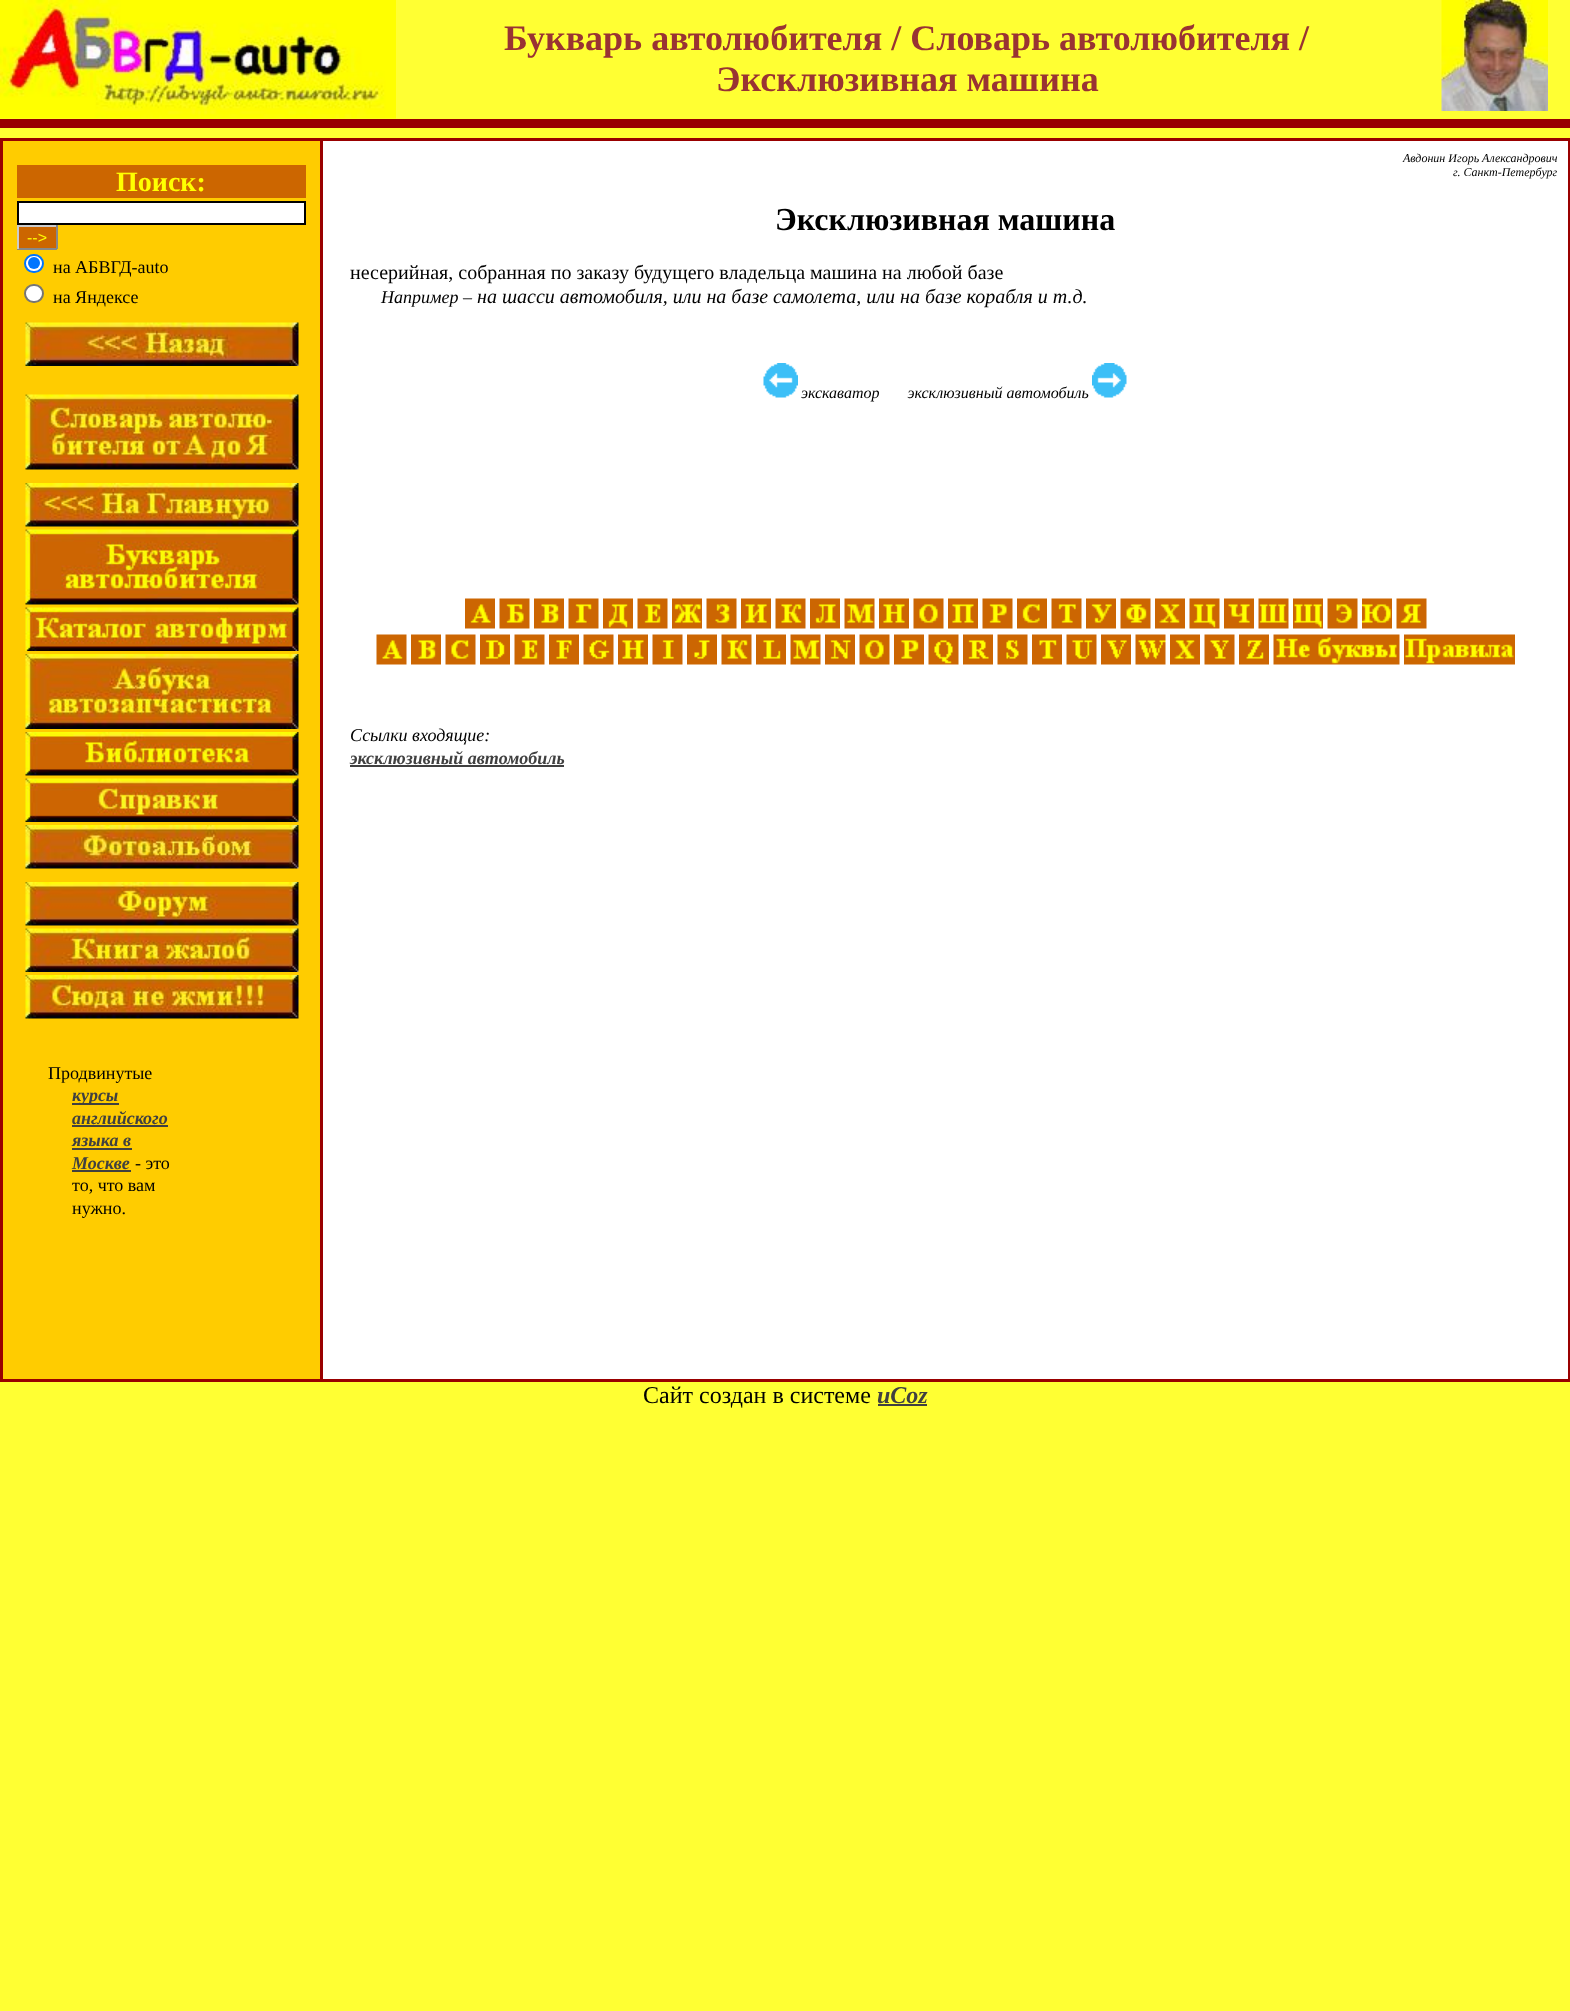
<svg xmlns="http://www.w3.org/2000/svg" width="1570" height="2011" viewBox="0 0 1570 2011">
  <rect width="100%" height="100%" fill="rgb(255,255,51)"/>
  <image x="0" y="0" width="396" height="119" href="pic1.png"/>
  <g font-family="Liberation Serif" font-size="36" font-weight="bold" fill="rgb(153,51,51)">
    <text x="504" y="50">Букварь автолюбителя / Словарь автолюбителя /</text>
    <text x="716" y="91">Эксклюзивная машина</text>
  </g>
  <image x="1441" y="0" width="107" height="111" href="pic2.png"/>
  <rect x="0" y="119" width="1570" height="9" fill="rgb(153,0,0)"/>
  <rect x="0" y="138" width="1570" height="1244" fill="rgb(153,0,0)"/>
  <rect x="3" y="141" width="317" height="1238" fill="rgb(255,204,0)"/>
  <rect x="17" y="165" width="289" height="33" fill="rgb(204,102,0)"/>
  <text x="116" y="191" font-family="Liberation Serif" font-size="28" font-weight="bold" fill="rgb(255,255,0)">Поиск:</text>
  <rect x="18" y="202" width="287" height="22" fill="rgb(255,255,255)" stroke="rgb(0,0,0)" stroke-width="2"/>
  <rect x="19" y="227" width="37" height="21" fill="rgb(204,102,0)"/>
  <rect x="17" y="225" width="40" height="2" fill="rgb(204,204,204)"/>
  <rect x="56" y="225" width="2" height="24" fill="rgb(136,136,136)"/>
  <rect x="17" y="248" width="40" height="2" fill="rgb(136,136,136)"/>
  <rect x="17" y="225" width="2" height="24" fill="rgb(204,204,204)"/>
  <text x="27" y="243" font-family="Liberation Sans" font-size="16" fill="rgb(255,255,0)">--&gt;</text>
  <rect x="25" y="255" width="18" height="17" rx="8.5" fill="rgb(255,255,255)" stroke="rgb(0,117,255)" stroke-width="2"/>
  <circle cx="34" cy="263" r="6" fill="rgb(0,117,255)"/>
  <text x="53" y="273" font-family="Liberation Serif" font-size="18" fill="rgb(0,0,0)">на АБВГД-auto</text>
  <rect x="25" y="285" width="18" height="17" rx="8.5" fill="rgb(255,255,255)" stroke="rgb(118,118,118)" stroke-width="2"/>
  <text x="53" y="303" font-family="Liberation Serif" font-size="18" fill="rgb(0,0,0)">на Яндексе</text>
  <image x="25" y="322" width="274" height="44" href="pic3.png"/>
  <image x="25" y="394" width="274" height="76" href="pic4.png"/>
  <image x="25" y="483" width="274" height="44" href="pic5.png"/>
  <image x="25" y="529" width="274" height="76" href="pic6.png"/>
  <image x="25" y="607" width="274" height="44" href="pic7.png"/>
  <image x="25" y="654" width="274" height="75" href="pic8.png"/>
  <image x="25" y="732" width="274" height="44" href="pic9.png"/>
  <image x="25" y="778" width="274" height="44" href="pic10.png"/>
  <image x="25" y="825" width="274" height="44" href="pic11.png"/>
  <image x="25" y="882" width="274" height="44" href="pic12.png"/>
  <image x="25" y="928" width="274" height="44" href="pic13.png"/>
  <image x="25" y="975" width="274" height="44" href="pic14.png"/>
  <text x="48" y="1079" font-family="Liberation Serif" font-size="18" fill="rgb(0,0,0)">Продвинутые</text>
  <rect x="72" y="1103" width="47" height="2" fill="rgb(64,64,64)"/>
  <g font-family="Liberation Serif" font-size="18" font-weight="bold" font-style="italic" fill="rgb(64,64,64)">
    <text>
      <tspan x="72" y="1101">курсы</tspan>
      <tspan x="72" y="1124">английского</tspan>
    </text>
  </g>
  <rect x="72" y="1125" width="96" height="2" fill="rgb(64,64,64)"/>
  <text x="72" y="1146" font-family="Liberation Serif" font-size="18" font-weight="bold" font-style="italic" fill="rgb(64,64,64)">языка в</text>
  <rect x="72" y="1148" width="60" height="2" fill="rgb(64,64,64)"/>
  <text x="72" y="1169" font-family="Liberation Serif" font-size="18" font-weight="bold" font-style="italic" fill="rgb(64,64,64)">Москве</text>
  <rect x="72" y="1170" width="59" height="2" fill="rgb(64,64,64)"/>
  <g font-family="Liberation Serif" font-size="18" fill="rgb(0,0,0)">
    <text x="135" y="1169">- это</text>
    <text>
      <tspan x="72" y="1191">то, что вам</tspan>
      <tspan x="72" y="1214">нужно.</tspan>
    </text>
  </g>
  <rect x="323" y="141" width="1245" height="1238" fill="rgb(255,255,255)"/>
  <g font-family="Liberation Serif" font-size="12" font-style="italic" fill="rgb(0,0,0)">
    <text x="1403" y="162">Авдонин Игорь Александрович</text>
    <text x="1453" y="176">г. Санкт-Петербург</text>
  </g>
  <text x="775" y="230" font-family="Liberation Serif" font-size="32" font-weight="bold" fill="rgb(0,0,0)">Эксклюзивная машина</text>
  <text x="350" y="279" font-family="Liberation Serif" font-size="20" fill="rgb(0,0,0)">несерийная, собранная по заказу будущего владельца машина на любой базе</text>
  <text x="381" y="303" font-family="Liberation Serif" font-size="18" font-style="italic" fill="rgb(0,0,0)">Например –</text>
  <text x="477" y="303" font-family="Liberation Serif" font-size="20" font-style="italic" fill="rgb(0,0,0)">на шасси автомобиля, или на базе самолета, или на базе корабля и т.д.</text>
  <image x="763" y="363" width="35" height="35" href="pic15.png"/>
  <text x="801" y="398" font-family="Liberation Serif" font-size="16" font-style="italic" fill="rgb(0,0,0)" xml:space="preserve">экскаватор       эксклюзивный автомобиль</text>
  <image x="1092" y="363" width="35" height="35" href="pic16.png"/>
  <image x="465" y="598" width="30" height="31" href="pic17.png"/>
  <image x="499" y="598" width="31" height="31" href="pic18.png"/>
  <image x="534" y="598" width="30" height="31" href="pic19.png"/>
  <image x="568" y="598" width="31" height="31" href="pic20.png"/>
  <image x="603" y="598" width="30" height="31" href="pic21.png"/>
  <image x="637" y="598" width="31" height="31" href="pic22.png"/>
  <image x="672" y="598" width="30" height="31" href="pic23.png"/>
  <image x="706" y="598" width="31" height="31" href="pic24.png"/>
  <image x="741" y="598" width="30" height="31" href="pic25.png"/>
  <image x="775" y="598" width="31" height="31" href="pic26.png"/>
  <image x="810" y="598" width="30" height="31" href="pic27.png"/>
  <image x="844" y="598" width="31" height="31" href="pic28.png"/>
  <image x="879" y="598" width="30" height="31" href="pic29.png"/>
  <image x="913" y="598" width="31" height="31" href="pic30.png"/>
  <image x="948" y="598" width="30" height="31" href="pic31.png"/>
  <image x="982" y="598" width="31" height="31" href="pic32.png"/>
  <image x="1017" y="598" width="30" height="31" href="pic33.png"/>
  <image x="1051" y="598" width="31" height="31" href="pic34.png"/>
  <image x="1086" y="598" width="30" height="31" href="pic35.png"/>
  <image x="1120" y="598" width="31" height="31" href="pic36.png"/>
  <image x="1155" y="598" width="30" height="31" href="pic37.png"/>
  <image x="1189" y="598" width="31" height="31" href="pic38.png"/>
  <image x="1224" y="598" width="30" height="31" href="pic39.png"/>
  <image x="1258" y="598" width="31" height="31" href="pic40.png"/>
  <image x="1293" y="598" width="30" height="31" href="pic41.png"/>
  <image x="1327" y="598" width="31" height="31" href="pic42.png"/>
  <image x="1362" y="598" width="30" height="31" href="pic43.png"/>
  <image x="1396" y="598" width="31" height="31" href="pic44.png"/>
  <image x="376" y="634" width="31" height="31" href="pic45.png"/>
  <image x="411" y="634" width="30" height="31" href="pic46.png"/>
  <image x="445" y="634" width="31" height="31" href="pic47.png"/>
  <image x="480" y="634" width="30" height="31" href="pic48.png"/>
  <image x="514" y="634" width="31" height="31" href="pic49.png"/>
  <image x="549" y="634" width="30" height="31" href="pic50.png"/>
  <image x="583" y="634" width="31" height="31" href="pic51.png"/>
  <image x="618" y="634" width="30" height="31" href="pic29.png"/>
  <image x="652" y="634" width="31" height="31" href="pic52.png"/>
  <image x="687" y="634" width="30" height="31" href="pic53.png"/>
  <image x="721" y="634" width="31" height="31" href="pic54.png"/>
  <image x="756" y="634" width="30" height="31" href="pic55.png"/>
  <image x="790" y="634" width="31" height="31" href="pic28.png"/>
  <image x="825" y="634" width="30" height="31" href="pic56.png"/>
  <image x="859" y="634" width="31" height="31" href="pic30.png"/>
  <image x="894" y="634" width="30" height="31" href="pic57.png"/>
  <image x="928" y="634" width="31" height="31" href="pic58.png"/>
  <image x="963" y="634" width="30" height="31" href="pic59.png"/>
  <image x="997" y="634" width="31" height="31" href="pic60.png"/>
  <image x="1032" y="634" width="30" height="31" href="pic61.png"/>
  <image x="1066" y="634" width="31" height="31" href="pic62.png"/>
  <image x="1101" y="634" width="30" height="31" href="pic63.png"/>
  <image x="1135" y="634" width="31" height="31" href="pic64.png"/>
  <image x="1170" y="634" width="30" height="31" href="pic37.png"/>
  <image x="1204" y="634" width="31" height="31" href="pic65.png"/>
  <image x="1239" y="634" width="30" height="31" href="pic66.png"/>
  <image x="1273" y="634" width="127" height="31" href="pic67.png"/>
  <image x="1404" y="634" width="111" height="31" href="pic68.png"/>
  <text x="350" y="741" font-family="Liberation Serif" font-size="18" font-style="italic" fill="rgb(0,0,0)">Ссылки входящие:</text>
  <text x="350" y="764" font-family="Liberation Serif" font-size="18" font-weight="bold" font-style="italic" fill="rgb(64,64,64)">эксклюзивный автомобиль</text>
  <rect x="350" y="765" width="214" height="2" fill="rgb(64,64,64)"/>
  <text x="643" y="1403" font-family="Liberation Serif" font-size="24" fill="rgb(0,0,0)">Сайт создан в системе</text>
  <text x="877" y="1403" font-family="Liberation Serif" font-size="24" font-weight="bold" font-style="italic" fill="rgb(64,64,64)">uCoz</text>
  <rect x="878" y="1404" width="49" height="2" fill="rgb(64,64,64)"/>
</svg>
